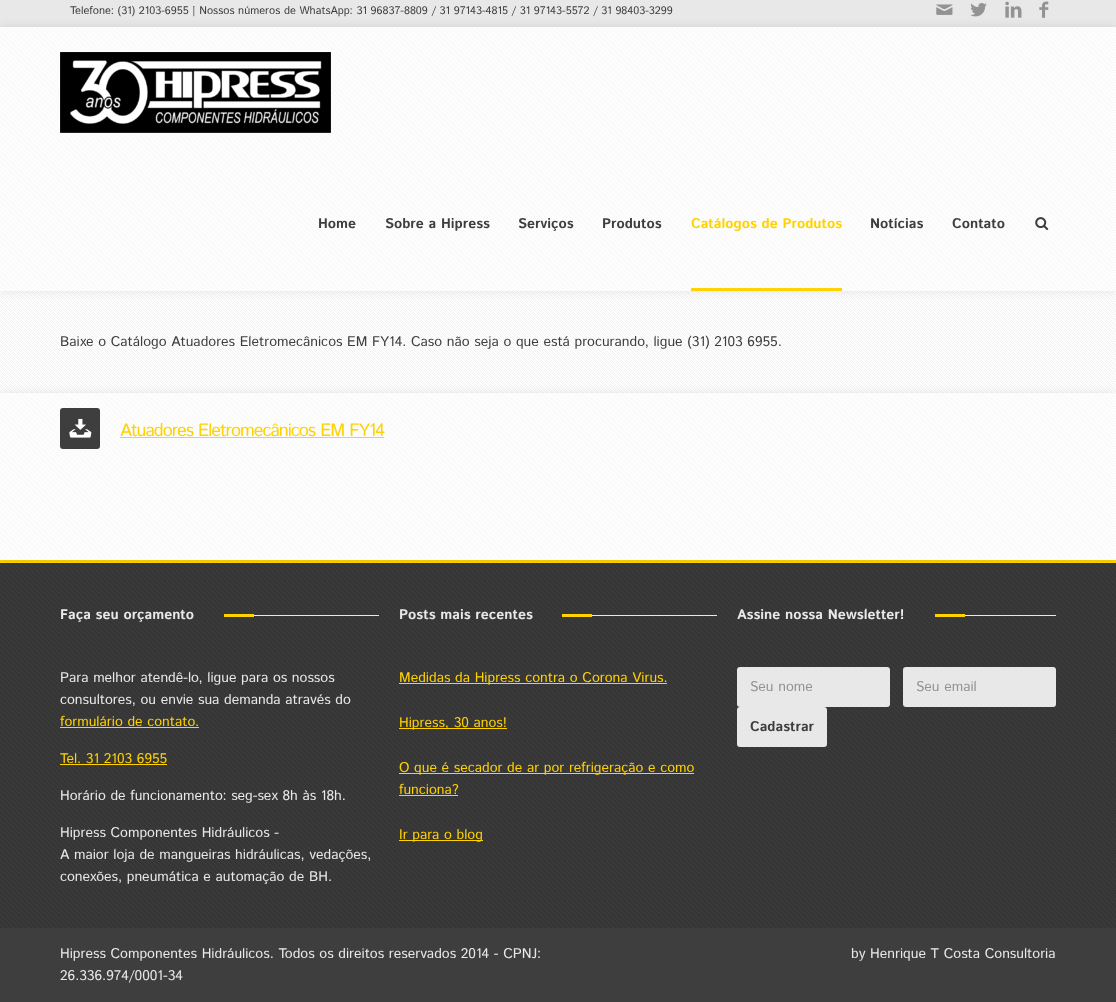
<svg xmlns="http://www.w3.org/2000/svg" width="1116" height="1002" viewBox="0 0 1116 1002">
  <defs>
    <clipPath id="clip1"><path d="M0 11H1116V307H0ZM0 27H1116V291H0Z" clip-rule="evenodd"/></clipPath>
    <clipPath id="clip2"><path d="M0 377H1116V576H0ZM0 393H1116V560H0Z" clip-rule="evenodd"/></clipPath>
  </defs>
  <rect width="100%" height="100%" fill="rgb(255,255,255)"/>
  <rect x="0" y="0" width="1116" height="27" fill="rgb(232,232,232)"/>
  <text x="70" y="14" font-family="Istok Web" font-size="11" fill="rgb(62,62,62)">Telefone: (31) 2103-6955 | Nossos números de WhatsApp: 31 96837-8809 / 31 97143-4815 / 31 97143-5572 / 31 98403-3299</text>
  <image x="936" y="4" width="17" height="11" href="pic1.png"/>
  <image x="970" y="3" width="17" height="14" href="pic2.png"/>
  <image x="1005" y="1" width="17" height="17" href="pic3.png"/>
  <image x="1039" y="1" width="10" height="17" href="pic4.png"/>
  <image x="0" y="291" width="1116" height="102" href="pic8.png"/>
  <g clip-path="url(#clip1)">
    <rect x="0" y="27" width="1116" height="264" fill="rgba(0,0,0,0.09)" filter="blur(5px)"/>
  </g>
  <image x="0" y="27" width="1116" height="264" href="pic5.png"/>
  <image x="60" y="52" width="271" height="81" href="pic6.png"/>
  <g font-family="Istok Web" font-size="14" font-weight="bold" fill="rgb(62,62,62)">
    <text x="318" y="228">Home</text>
    <text x="385" y="228">Sobre a Hipress</text>
    <text x="518" y="228">Serviços</text>
    <text x="602" y="228">Produtos</text>
  </g>
  <rect x="691" y="288" width="151" height="3" fill="rgb(255,210,0)"/>
  <text x="691" y="228" font-family="Istok Web" font-size="14" font-weight="bold" fill="rgb(255,210,0)">Catálogos de Produtos</text>
  <g font-family="Istok Web" font-size="14" font-weight="bold" fill="rgb(62,62,62)">
    <text x="870" y="228">Notícias</text>
    <text x="952" y="228">Contato</text>
  </g>
  <image x="1035" y="217" width="14" height="14" href="pic7.png"/>
  <text x="60" y="346" font-family="Istok Web" font-size="14" fill="rgb(62,62,62)">Baixe o Catálogo Atuadores Eletromecânicos EM FY14. Caso não seja o que está procurando, ligue (31) 2103 6955.</text>
  <rect x="0" y="563" width="1116" height="439" fill="rgb(62,62,62)"/>
  <image x="0" y="563" width="1116" height="365" href="pic11.png"/>
  <rect x="0" y="560" width="1116" height="3" fill="rgb(255,210,0)"/>
  <g clip-path="url(#clip2)">
    <rect x="0" y="393" width="1116" height="167" fill="rgba(0,0,0,0.09)" filter="blur(5px)"/>
  </g>
  <image x="0" y="393" width="1116" height="167" href="pic9.png"/>
  <rect x="60" y="408" width="40" height="41" rx="3" fill="rgb(62,62,62)"/>
  <image x="69" y="418" width="23" height="20" href="pic10.png"/>
  <text x="120" y="436" font-family="Istok Web" font-size="18" letter-spacing="-1" fill="rgb(255,210,0)">Atuadores Eletromecânicos EM FY14</text>
  <rect x="120" y="437" width="264" height="1" fill="rgb(255,210,0)"/>
  <text x="60" y="619" font-family="Istok Web" font-size="14" font-weight="bold" fill="rgb(232,232,232)">Faça seu orçamento</text>
  <rect x="224" y="614" width="30" height="3" fill="rgb(255,210,0)"/>
  <rect x="254" y="615" width="125" height="1" fill="rgb(232,232,232)"/>
  <g font-family="Istok Web" font-size="14" fill="rgb(232,232,232)">
    <text>
      <tspan x="60" y="682">Para melhor atendê-lo, ligue para os nossos</tspan>
      <tspan x="60" y="704">consultores, ou envie sua demanda através do</tspan>
    </text>
  </g>
  <text x="60" y="726" font-family="Istok Web" font-size="14" fill="rgb(255,210,0)">formulário de contato.</text>
  <rect x="60" y="727" width="139" height="1" fill="rgb(255,210,0)"/>
  <text x="60" y="763" font-family="Istok Web" font-size="14" fill="rgb(255,210,0)">Tel. 31 2103 6955</text>
  <rect x="60" y="764" width="107" height="1" fill="rgb(255,210,0)"/>
  <g font-family="Istok Web" font-size="14" fill="rgb(232,232,232)">
    <text x="60" y="800">Horário de funcionamento: seg-sex 8h às 18h.</text>
    <text>
      <tspan x="60" y="837">Hipress Componentes Hidráulicos -</tspan>
      <tspan x="60" y="859">A maior loja de mangueiras hidráulicas, vedações,</tspan>
      <tspan x="60" y="881">conexões, pneumática e automação de BH.</tspan>
    </text>
  </g>
  <text x="399" y="619" font-family="Istok Web" font-size="14" font-weight="bold" fill="rgb(232,232,232)">Posts mais recentes</text>
  <rect x="562" y="614" width="30" height="3" fill="rgb(255,210,0)"/>
  <rect x="592" y="615" width="125" height="1" fill="rgb(232,232,232)"/>
  <rect x="399" y="683" width="268" height="1" fill="rgb(255,210,0)"/>
  <text x="399" y="682" font-family="Istok Web" font-size="14" fill="rgb(255,210,0)">Medidas da Hipress contra o Corona Virus.</text>
  <rect x="399" y="728" width="108" height="1" fill="rgb(255,210,0)"/>
  <text x="399" y="727" font-family="Istok Web" font-size="14" fill="rgb(255,210,0)">Hipress, 30 anos!</text>
  <rect x="399" y="773" width="295" height="1" fill="rgb(255,210,0)"/>
  <g font-family="Istok Web" font-size="14" fill="rgb(255,210,0)">
    <text>
      <tspan x="399" y="772">O que é secador de ar por refrigeração e como</tspan>
      <tspan x="399" y="794">funciona?</tspan>
    </text>
  </g>
  <rect x="399" y="795" width="59" height="1" fill="rgb(255,210,0)"/>
  <rect x="399" y="840" width="84" height="1" fill="rgb(255,210,0)"/>
  <text x="399" y="839" font-family="Istok Web" font-size="14" fill="rgb(255,210,0)">Ir para o blog</text>
  <text x="737" y="619" font-family="Istok Web" font-size="14" font-weight="bold" fill="rgb(232,232,232)">Assine nossa Newsletter!</text>
  <rect x="935" y="614" width="30" height="3" fill="rgb(255,210,0)"/>
  <rect x="965" y="615" width="91" height="1" fill="rgb(232,232,232)"/>
  <rect x="737" y="667" width="153" height="40" rx="3" fill="rgb(232,232,232)"/>
  <text x="750" y="691" font-family="Istok Web" font-size="14" fill="rgb(147,147,147)">Seu nome</text>
  <rect x="903" y="667" width="153" height="40" rx="3" fill="rgb(232,232,232)"/>
  <text x="916" y="691" font-family="Istok Web" font-size="14" fill="rgb(147,147,147)">Seu email</text>
  <rect x="737" y="707" width="90" height="40" rx="3" fill="rgb(232,232,232)"/>
  <text x="750" y="731" font-family="Istok Web" font-size="14" font-weight="bold" fill="rgb(62,62,62)">Cadastrar</text>
  <g font-family="Istok Web" font-size="14" fill="rgb(232,232,232)">
    <text>
      <tspan x="60" y="958">Hipress Componentes Hidráulicos. Todos os direitos reservados 2014 - CPNJ:</tspan>
      <tspan x="60" y="980">26.336.974/0001-34</tspan>
    </text>
    <text x="851" y="958">by Henrique T Costa Consultoria</text>
  </g>
</svg>
